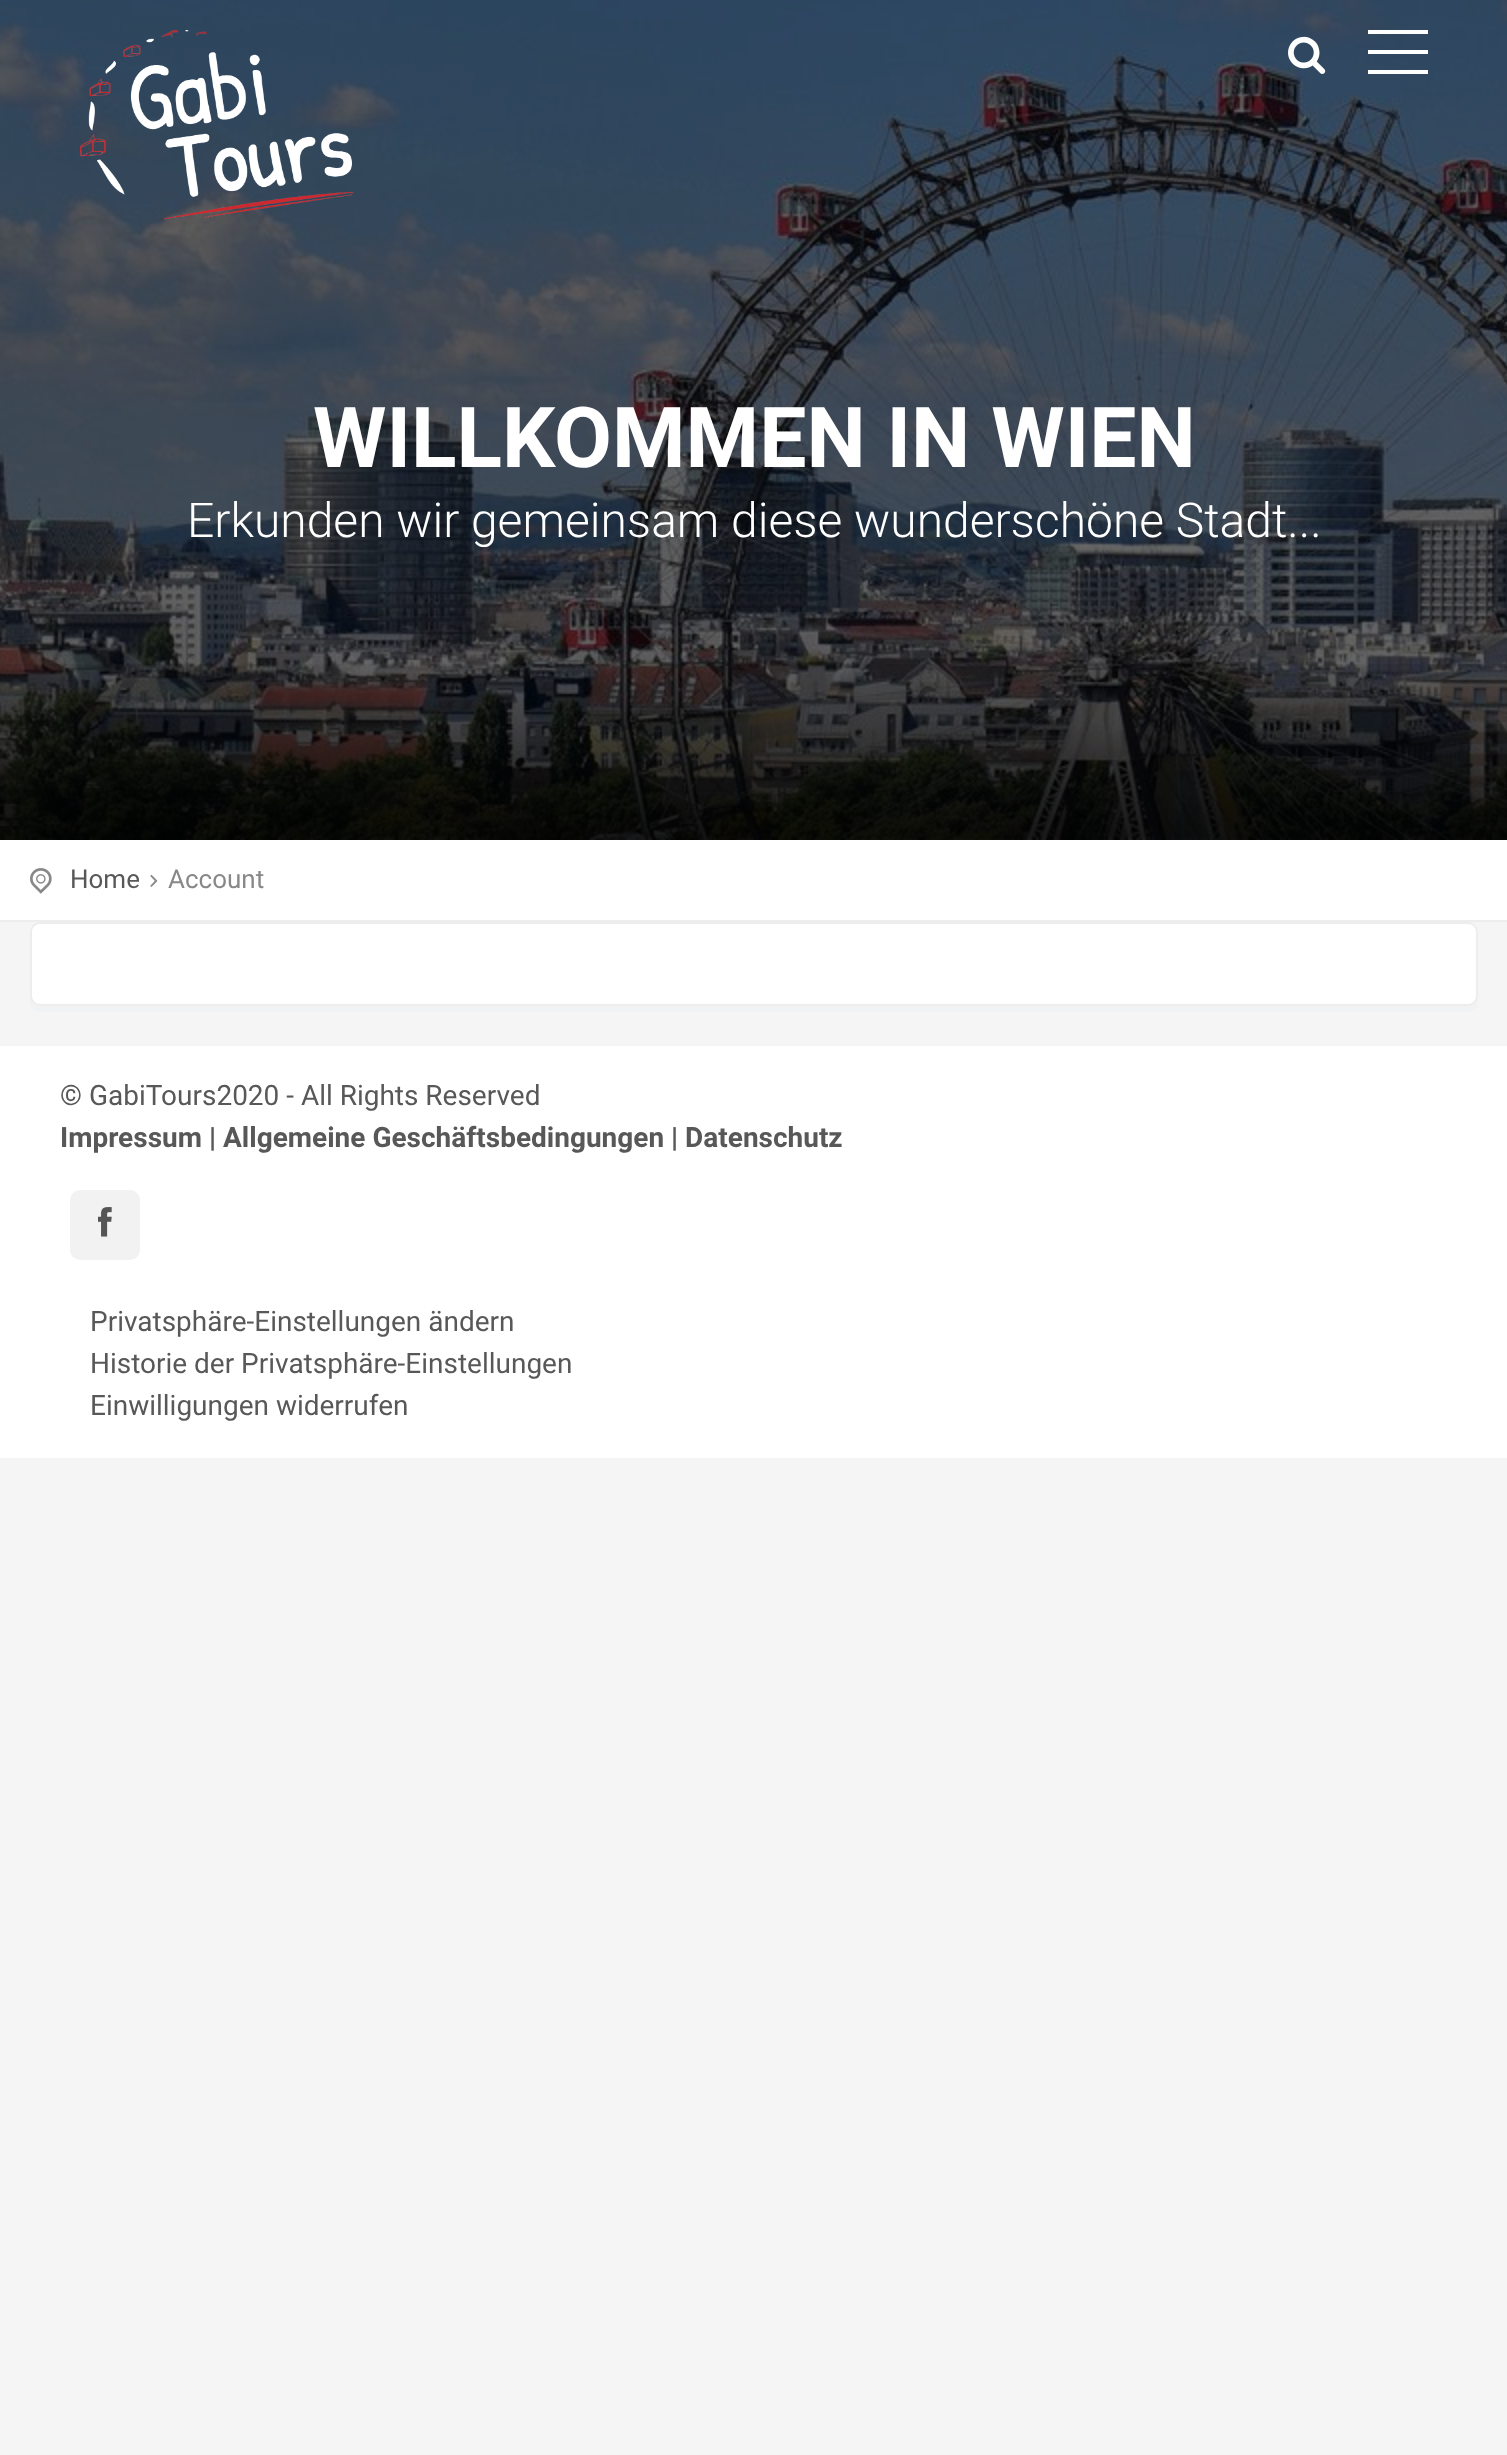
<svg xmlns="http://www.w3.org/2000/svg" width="1507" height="2455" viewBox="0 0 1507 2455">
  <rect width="100%" height="100%" fill="rgb(245,245,245)"/>
  <image x="0" y="0" width="1507" height="840" href="pic1.png"/>
  <image x="80" y="30" width="274" height="190" href="pic2.png"/>
  <image x="1288" y="36" width="38" height="38" href="pic3.png"/>
  <rect x="1368" y="50" width="60" height="4" fill="rgb(255,255,255)"/>
  <rect x="1368" y="30" width="60" height="4" fill="rgb(255,255,255)"/>
  <rect x="1368" y="70" width="60" height="4" fill="rgb(255,255,255)"/>
  <image x="0" y="664" width="1507" height="176" href="pic4.png"/>
  <text x="313" y="467" font-family="Roboto" font-size="84" font-weight="bold" fill="rgb(255,255,255)">WILLKOMMEN IN WIEN</text>
  <text x="187" y="537" font-family="Roboto" font-size="48" font-weight="300" fill="rgb(255,255,255)">Erkunden wir gemeinsam diese wunderschöne Stadt...</text>
  <rect x="0" y="840" width="1507" height="80" fill="rgb(255,255,255)"/>
  <rect x="0" y="920" width="1507" height="2" fill="rgb(237,237,237)"/>
  <image x="30" y="868" width="22" height="26" href="pic5.png"/>
  <text x="70" y="888" font-family="Roboto" font-size="26" fill="rgb(88,88,88)">Home</text>
  <image x="150" y="874" width="8" height="13" href="pic6.png"/>
  <text x="168" y="888" font-family="Roboto" font-size="26" fill="rgb(136,136,136)">Account</text>
  <path d="M30 996C30 1003 30 1012 40 1012H1468C1478 1012 1478 1003 1478 996C1478 1002 1474 1006 1468 1006H40C34 1006 30 1002 30 996Z" fill="rgb(240,242,244)"/>
  <rect x="31" y="923" width="1446" height="82" rx="9" fill="rgb(255,255,255)" stroke="rgb(237,237,237)" stroke-width="2"/>
  <rect x="0" y="1046" width="1507" height="412" fill="rgb(255,255,255)"/>
  <text x="60" y="1105" font-family="Roboto" font-size="28" fill="rgb(88,88,88)">© GabiTours2020 - All Rights Reserved</text>
  <text x="60" y="1147" font-family="Roboto" font-size="28" font-weight="bold" fill="rgb(88,88,88)">Impressum | Allgemeine Geschäftsbedingungen | Datenschutz</text>
  <rect x="70" y="1190" width="70" height="70" rx="10" fill="rgb(242,242,242)"/>
  <image x="98" y="1207" width="14" height="30" href="pic7.png"/>
  <g font-family="Roboto" font-size="28" fill="rgb(88,88,88)">
    <text>
      <tspan x="90" y="1331">Privatsphäre-Einstellungen ändern</tspan>
      <tspan x="90" y="1373">Historie der Privatsphäre-Einstellungen</tspan>
      <tspan x="90" y="1415">Einwilligungen widerrufen</tspan>
    </text>
  </g>
</svg>
